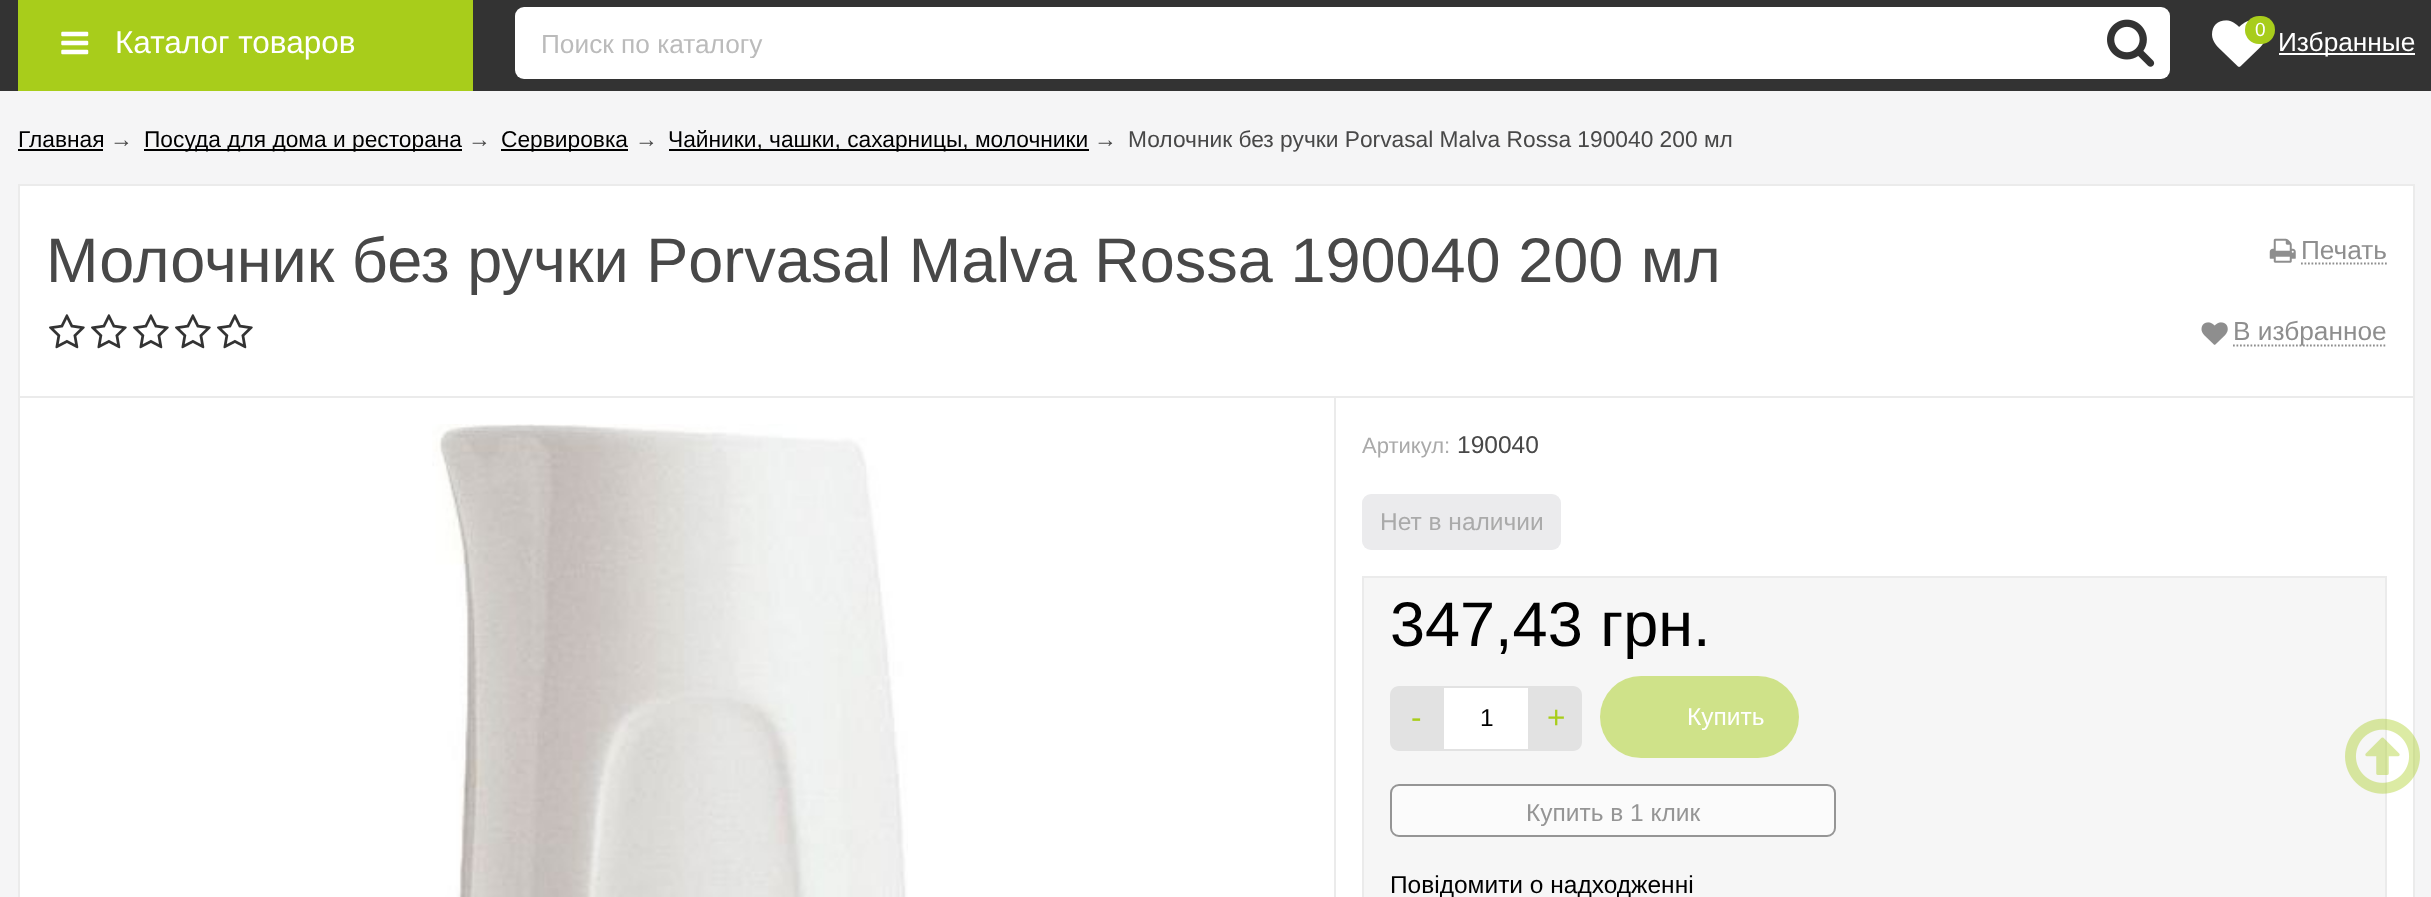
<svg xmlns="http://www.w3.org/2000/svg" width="2431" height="897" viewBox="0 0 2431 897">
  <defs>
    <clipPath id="clip1"><rect x="541" y="28" width="1542" height="30"/></clipPath>
  </defs>
  <rect width="100%" height="100%" fill="rgb(245,245,246)"/>
  <rect x="0" y="0" width="2431" height="91" fill="rgb(51,51,51)"/>
  <rect x="18" y="0" width="455" height="91" fill="rgb(168,205,27)"/>
  <image x="61" y="31" width="28" height="24" href="pic1.png"/>
  <text x="115" y="53" font-family="Liberation Sans" font-size="31.5" fill="rgb(255,255,255)">Каталог товаров</text>
  <rect x="515" y="7" width="1655" height="72" rx="9" fill="rgb(255,255,255)"/>
  <g clip-path="url(#clip1)">
    <text x="541" y="53" font-family="Liberation Sans" font-size="26.25" fill="rgb(187,187,187)">Поиск по каталогу</text>
  </g>
  <image x="2107" y="19" width="48" height="48" href="pic2.png"/>
  <image x="2212" y="20" width="52" height="47" href="pic3.png"/>
  <rect x="2245" y="16" width="30" height="28" rx="14" fill="rgb(168,205,27)"/>
  <text x="2255" y="36" font-family="Liberation Sans" font-size="19" fill="rgb(255,255,255)">0</text>
  <rect x="2279" y="53" width="136" height="2" fill="rgb(255,255,255)"/>
  <text x="2278" y="51" font-family="Liberation Sans" font-size="26.25" fill="rgb(255,255,255)">Избранные</text>
  <text x="18" y="147" font-family="Liberation Sans" font-size="22.75" fill="rgb(0,0,0)">Главная</text>
  <rect x="18" y="149" width="85" height="2" fill="rgb(0,0,0)"/>
  <text x="110" y="147" font-family="Liberation Sans" font-size="22.75" fill="rgb(72,72,72)">→</text>
  <rect x="144" y="149" width="318" height="2" fill="rgb(0,0,0)"/>
  <text x="144" y="147" font-family="Liberation Sans" font-size="22.75" fill="rgb(0,0,0)">Посуда для дома и ресторана</text>
  <text x="468" y="147" font-family="Liberation Sans" font-size="22.75" fill="rgb(72,72,72)">→</text>
  <rect x="501" y="149" width="127" height="2" fill="rgb(0,0,0)"/>
  <text x="501" y="147" font-family="Liberation Sans" font-size="22.75" fill="rgb(0,0,0)">Сервировка</text>
  <text x="635" y="147" font-family="Liberation Sans" font-size="22.75" fill="rgb(72,72,72)">→</text>
  <rect x="669" y="149" width="420" height="2" fill="rgb(0,0,0)"/>
  <text x="668" y="147" font-family="Liberation Sans" font-size="22.75" fill="rgb(0,0,0)">Чайники, чашки, сахарницы, молочники</text>
  <g font-family="Liberation Sans" font-size="22.75" fill="rgb(72,72,72)">
    <text x="1094" y="147">→</text>
    <text x="1128" y="147">Молочник без ручки Porvasal Malva Rossa 190040 200 мл</text>
  </g>
  <rect x="19" y="185" width="2395" height="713" fill="rgb(255,255,255)" stroke="rgb(235,235,235)" stroke-width="2"/>
  <rect x="19" y="396" width="2394" height="2" fill="rgb(235,235,235)"/>
  <text x="46" y="282" font-family="Liberation Sans" font-size="63" fill="rgb(72,72,72)">Молочник без ручки Porvasal Malva Rossa 190040 200 мл</text>
  <path d="M2301 263.5H2387" fill="none" stroke="rgb(142,142,142)" stroke-width="1.8" stroke-dasharray="1.75 1.75"/>
  <image x="2269" y="238" width="27" height="25" href="pic4.png"/>
  <text x="2301" y="259" font-family="Liberation Sans" font-size="26.25" fill="rgb(142,142,142)">Печать</text>
  <image x="49" y="314" width="36" height="35" href="pic5.png"/>
  <image x="91" y="314" width="36" height="35" href="pic6.png"/>
  <image x="133" y="314" width="36" height="35" href="pic6.png"/>
  <image x="175" y="314" width="36" height="35" href="pic6.png"/>
  <image x="217" y="314" width="36" height="35" href="pic7.png"/>
  <image x="2201" y="322" width="27" height="23" href="pic8.png"/>
  <path d="M2233 345.5H2387" fill="none" stroke="rgb(142,142,142)" stroke-width="1.8" stroke-dasharray="1.75 1.75"/>
  <text x="2233" y="340" font-family="Liberation Sans" font-size="26.25" fill="rgb(142,142,142)">В избранное</text>
  <rect x="1334" y="397" width="2" height="500" fill="rgb(235,235,235)"/>
  <image x="432" y="424" width="476" height="473" href="pic9.png"/>
  <text x="1362" y="453" font-family="Liberation Sans" font-size="22" fill="rgb(170,170,170)">Артикул:</text>
  <text x="1457" y="453" font-family="Liberation Sans" font-size="24.5" fill="rgb(72,72,72)">190040</text>
  <rect x="1362" y="494" width="199" height="56" rx="9" fill="rgb(235,235,237)"/>
  <text x="1380" y="530" font-family="Liberation Sans" font-size="24.5" fill="rgb(170,170,170)">Нет в наличии</text>
  <rect x="1363" y="577" width="1023" height="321" fill="rgb(246,246,246)" stroke="rgb(235,235,235)" stroke-width="2"/>
  <text x="1390" y="646" font-family="Liberation Sans" font-size="63" fill="rgb(0,0,0)">347,43 грн.</text>
  <path d="M1399 686H1442V751H1399C1394 751 1390 747 1390 742V695C1390 690 1394 686 1399 686Z" fill="rgb(226,226,226)"/>
  <text x="1411" y="728" font-family="Liberation Sans" font-size="31.5" fill="rgb(168,205,27)">-</text>
  <rect x="1443" y="687" width="86" height="63" fill="rgb(255,255,255)" stroke="rgb(226,226,226)" stroke-width="2"/>
  <text x="1480" y="726" font-family="Liberation Sans" font-size="24.5" fill="rgb(0,0,0)">1</text>
  <path d="M1530 686H1573C1578 686 1582 690 1582 695V742C1582 747 1578 751 1573 751H1530Z" fill="rgb(226,226,226)"/>
  <text x="1547" y="728" font-family="Liberation Sans" font-size="31.5" fill="rgb(168,205,27)">+</text>
  <rect x="1600" y="676" width="199" height="82" rx="41" fill="rgb(207,226,137)"/>
  <text x="1687" y="725" font-family="Liberation Sans" font-size="24.5" fill="rgb(255,255,255)">Купить</text>
  <rect x="1391" y="785" width="444" height="51" rx="8" fill="rgb(251,251,251)" stroke="rgb(149,149,149)" stroke-width="2"/>
  <text x="1526" y="821" font-family="Liberation Sans" font-size="24.5" fill="rgb(149,149,149)">Купить в 1 клик</text>
  <text x="1390" y="893" font-family="Liberation Sans" font-size="24.5" fill="rgb(0,0,0)">Повідомити о надходженні</text>
  <image x="2345" y="718" width="75" height="76" href="pic10.png"/>
</svg>
